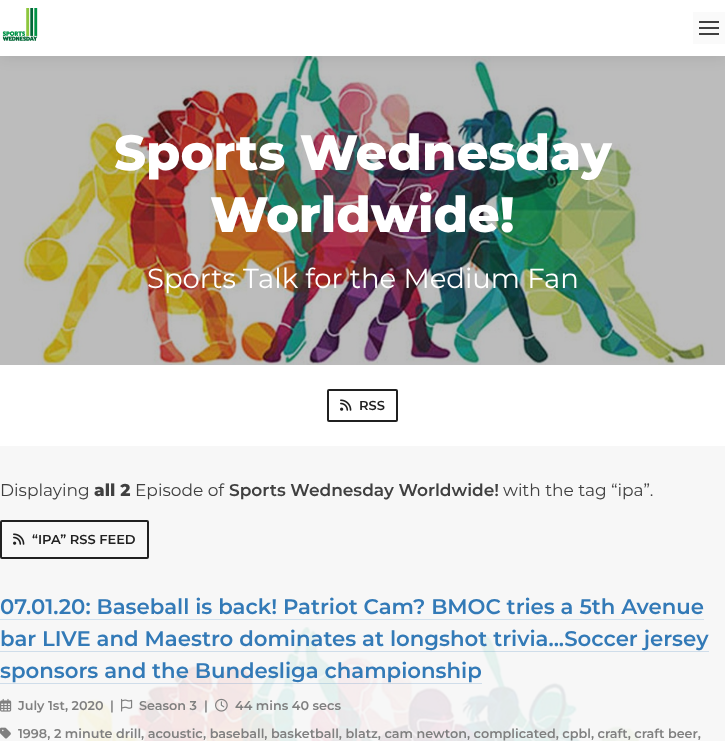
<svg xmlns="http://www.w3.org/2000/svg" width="725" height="741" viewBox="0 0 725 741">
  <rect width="100%" height="100%" fill="rgb(247,247,247)"/>
  <image x="0" y="56" width="725" height="309" href="pic2.png"/>
  <rect x="0" y="0" width="725" height="56" fill="rgba(0,0,0,0.1)" filter="blur(8px)"/>
  <rect x="0" y="0" width="725" height="56" fill="rgb(255,255,255)"/>
  <image x="0" y="8" width="40" height="40" href="pic1.png"/>
  <rect x="693" y="12" width="32" height="32" fill="rgb(250,250,250)"/>
  <rect x="699" y="21" width="20" height="2" fill="rgb(64,64,64)"/>
  <rect x="699" y="27" width="20" height="2" fill="rgb(64,64,64)"/>
  <rect x="699" y="33" width="20" height="2" fill="rgb(64,64,64)"/>
  <g font-family="Montserrat" font-size="49.5" font-weight="800" fill="rgb(255,255,255)">
    <text x="114" y="170">Sports Wednesday</text>
    <text x="210" y="232">Worldwide!</text>
  </g>
  <text x="147" y="288" font-family="Montserrat" font-size="27.5" fill="rgb(255,255,255)">Sports Talk for the Medium Fan</text>
  <rect x="0" y="365" width="725" height="81" fill="rgb(255,255,255)"/>
  <rect x="328" y="390" width="69" height="31" rx="1" fill="none" stroke="rgb(32,32,32)" stroke-width="2"/>
  <image x="340" y="399" width="12" height="12" href="pic3.png"/>
  <text x="359" y="410" font-family="Montserrat" font-size="13" font-weight="600" fill="rgb(32,32,32)">RSS</text>
  <text x="0" y="496" font-family="Montserrat" font-size="17" fill="rgb(64,64,64)">Displaying</text>
  <text x="94" y="496" font-family="Montserrat" font-size="17" font-weight="800" fill="rgb(64,64,64)">all 2</text>
  <text x="135" y="496" font-family="Montserrat" font-size="17" fill="rgb(64,64,64)">Episode of</text>
  <text x="229" y="496" font-family="Montserrat" font-size="17" font-weight="600" fill="rgb(64,64,64)">Sports Wednesday Worldwide!</text>
  <text x="503" y="496" font-family="Montserrat" font-size="17" fill="rgb(64,64,64)">with the tag “ipa”.</text>
  <rect x="1" y="521" width="147" height="37" rx="1" fill="none" stroke="rgb(32,32,32)" stroke-width="2"/>
  <image x="13" y="533" width="12" height="12" href="pic4.png"/>
  <text x="32" y="544" font-family="Montserrat" font-size="13" font-weight="600" fill="rgb(32,32,32)">“IPA” RSS FEED</text>
  <text x="0" y="614" font-family="Montserrat" font-size="21.25" font-weight="600" fill="rgb(51,122,183)">07.01.20: Baseball is back! Patriot Cam? BMOC tries a 5th Avenue</text>
  <rect x="0" y="619" width="704" height="1" fill="rgb(209,224,236)"/>
  <image x="77" y="627" width="562" height="114" href="pic9.png"/>
  <text x="0" y="646" font-family="Montserrat" font-size="21.25" font-weight="600" fill="rgb(51,122,183)">bar LIVE and Maestro dominates at longshot trivia...Soccer jersey</text>
  <rect x="0" y="651" width="709" height="1" fill="rgba(51,122,183,0.2)"/>
  <text x="0" y="678" font-family="Montserrat" font-size="21.25" font-weight="600" fill="rgb(51,122,183)">sponsors and the Bundesliga championship</text>
  <rect x="0" y="683" width="482" height="1" fill="rgba(51,122,183,0.2)"/>
  <image x="0" y="698" width="12" height="14" href="pic5.png"/>
  <g font-family="Montserrat" font-size="12.75" font-weight="600" fill="rgb(128,128,128)">
    <text x="18" y="710">July 1st, 2020</text>
    <text x="110" y="710">|</text>
  </g>
  <image x="121" y="698" width="12" height="14" href="pic6.png"/>
  <g font-family="Montserrat" font-size="12.75" font-weight="600" fill="rgb(128,128,128)">
    <text x="139" y="710">Season 3</text>
    <text x="204" y="710">|</text>
  </g>
  <image x="215" y="698" width="13" height="14" href="pic7.png"/>
  <text x="235" y="710" font-family="Montserrat" font-size="12.75" font-weight="600" fill="rgb(128,128,128)">44 mins 40 secs</text>
  <image x="0" y="727" width="11" height="12" href="pic8.png"/>
  <text x="18" y="738" font-family="Montserrat" font-size="12.75" font-weight="600" fill="rgb(128,128,128)">1998, 2 minute drill, acoustic, baseball, basketball, blatz, cam newton, complicated, cpbl, craft, craft beer,</text>
</svg>
